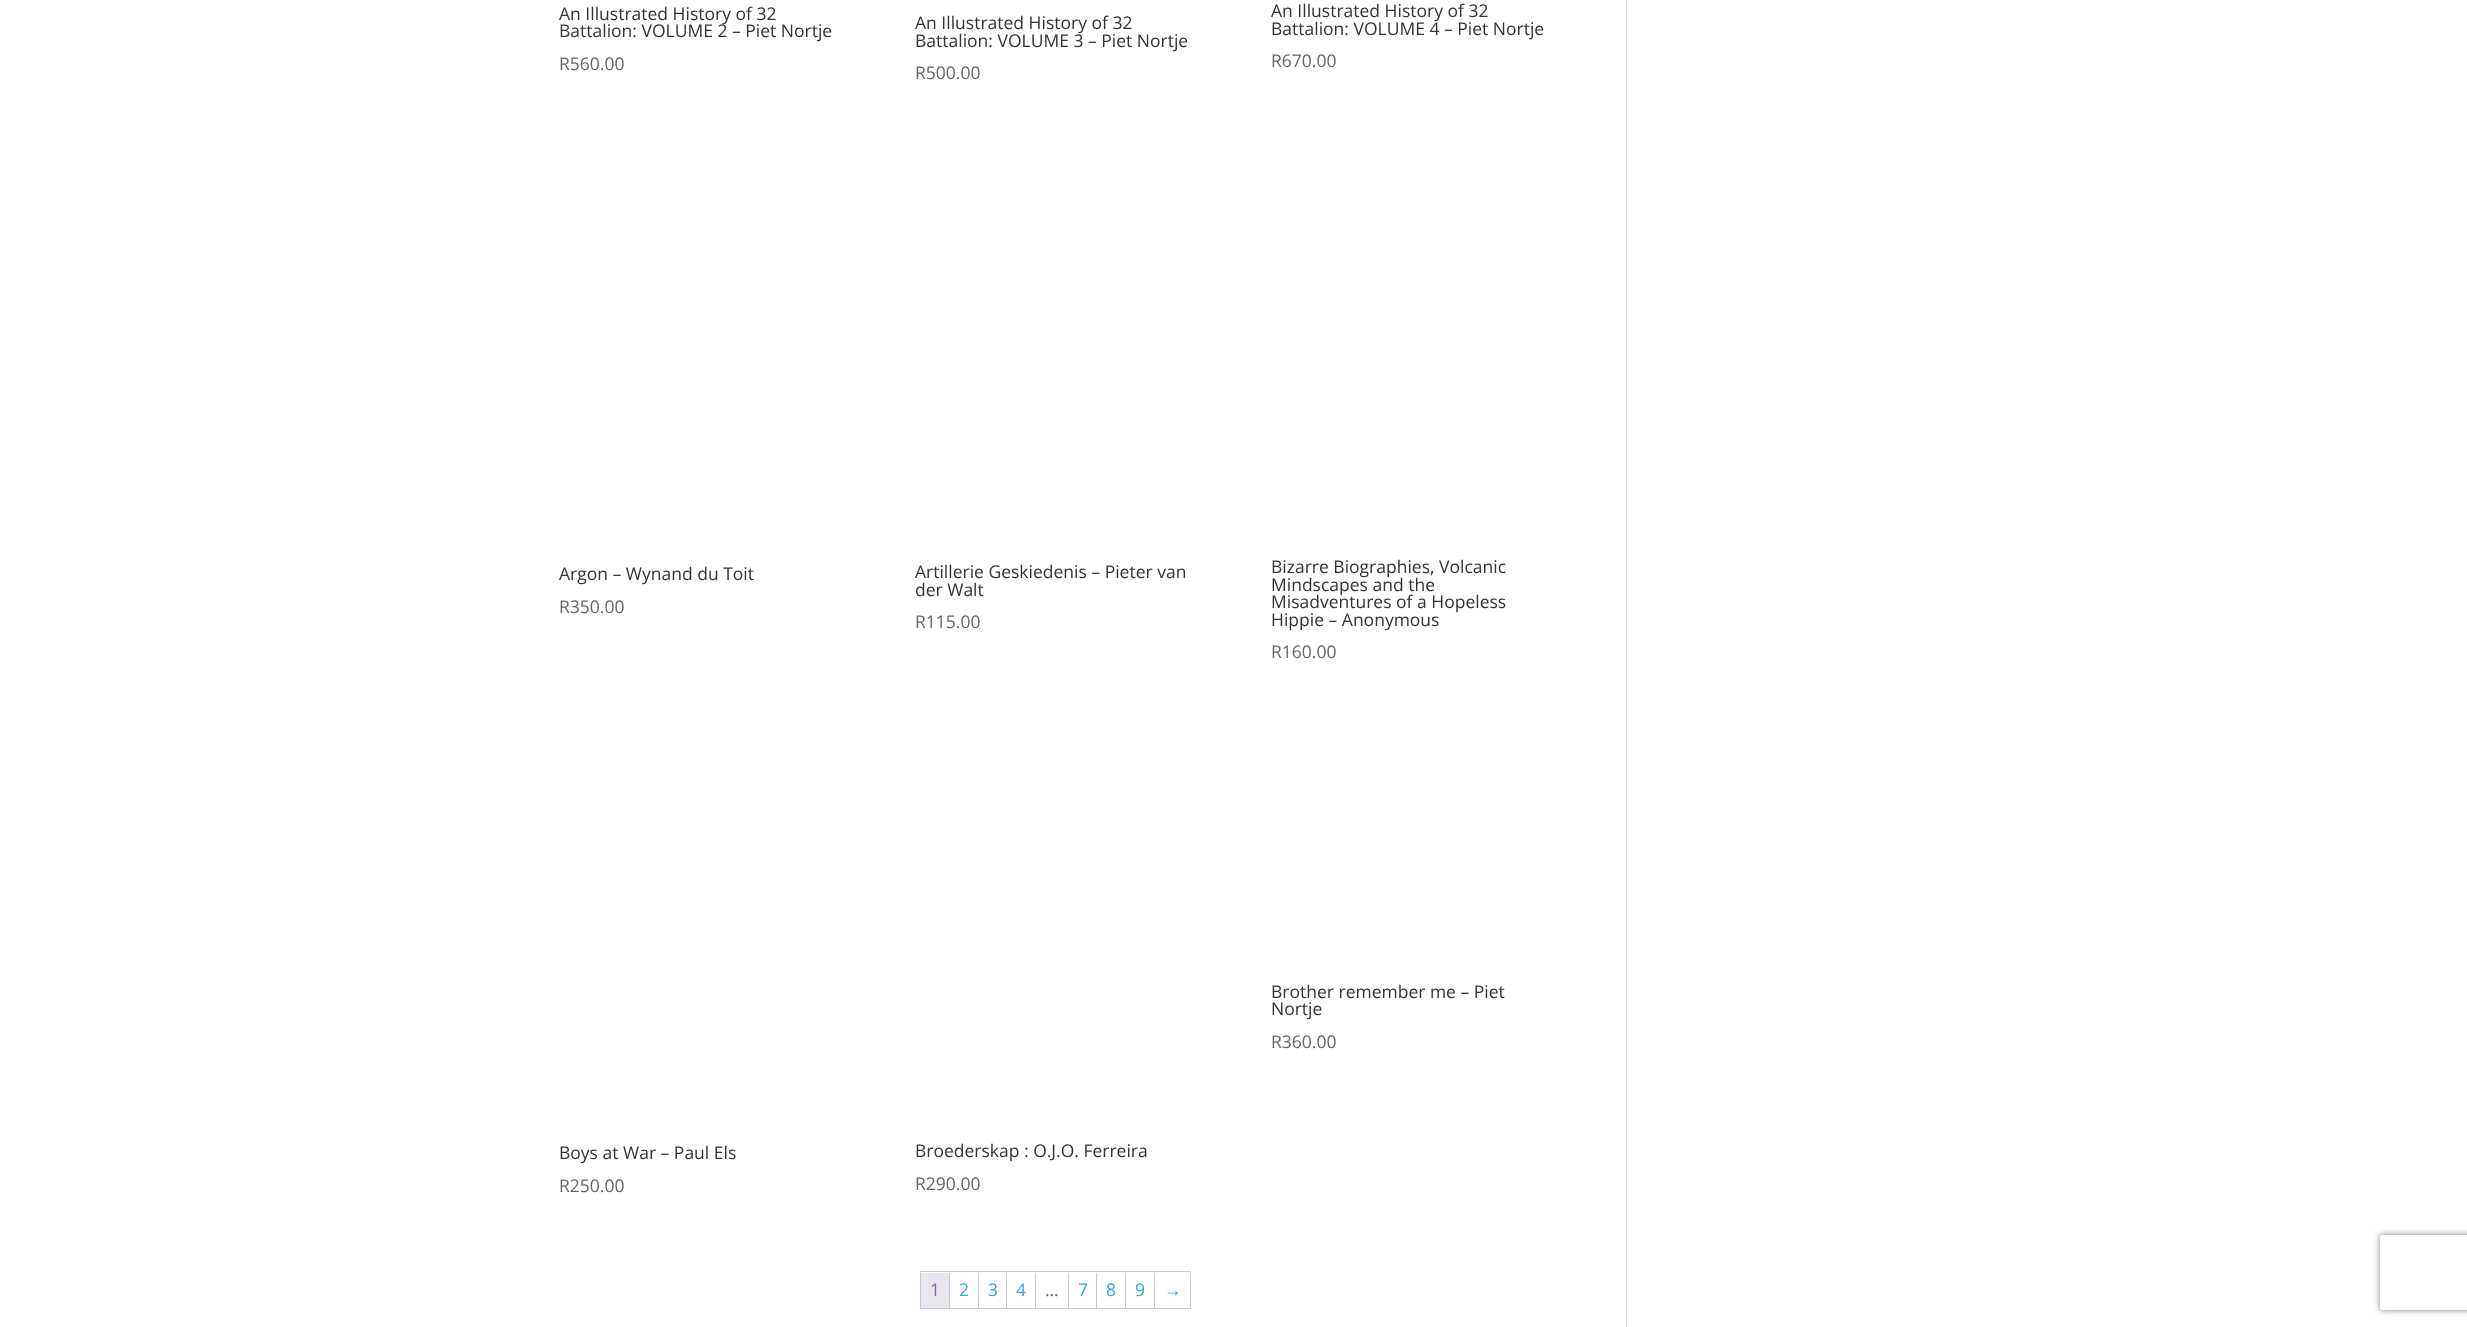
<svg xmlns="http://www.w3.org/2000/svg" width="2467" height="1327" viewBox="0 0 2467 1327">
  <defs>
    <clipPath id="clip1"><path d="M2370 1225H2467V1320H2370ZM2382.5 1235H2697.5C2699 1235 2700 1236 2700 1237.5V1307.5C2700 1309 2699 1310 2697.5 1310H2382.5C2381 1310 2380 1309 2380 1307.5V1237.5C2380 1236 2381 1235 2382.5 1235Z" clip-rule="evenodd"/></clipPath>
  </defs>
  <rect width="100%" height="100%" fill="rgb(255,255,255)"/>
  <g font-family="Open Sans" font-size="17.5" fill="rgb(51,51,51)">
    <text>
      <tspan x="559" y="20">An Illustrated History of 32</tspan>
      <tspan x="559" y="37">Battalion: VOLUME 2 – Piet Nortje</tspan>
    </text>
  </g>
  <text x="559" y="70" font-family="Open Sans" font-size="17.5" fill="rgb(102,102,102)">R560.00</text>
  <g font-family="Open Sans" font-size="17.5" fill="rgb(51,51,51)">
    <text>
      <tspan x="915" y="29">An Illustrated History of 32</tspan>
      <tspan x="915" y="47">Battalion: VOLUME 3 – Piet Nortje</tspan>
    </text>
  </g>
  <text x="915" y="79" font-family="Open Sans" font-size="17.5" fill="rgb(102,102,102)">R500.00</text>
  <g font-family="Open Sans" font-size="17.5" fill="rgb(51,51,51)">
    <text>
      <tspan x="1271" y="17">An Illustrated History of 32</tspan>
      <tspan x="1271" y="35">Battalion: VOLUME 4 – Piet Nortje</tspan>
    </text>
  </g>
  <text x="1271" y="67" font-family="Open Sans" font-size="17.5" fill="rgb(102,102,102)">R670.00</text>
  <text x="559" y="580" font-family="Open Sans" font-size="17.5" fill="rgb(51,51,51)">Argon – Wynand du Toit</text>
  <text x="559" y="613" font-family="Open Sans" font-size="17.5" fill="rgb(102,102,102)">R350.00</text>
  <g font-family="Open Sans" font-size="17.5" fill="rgb(51,51,51)">
    <text>
      <tspan x="915" y="578">Artillerie Geskiedenis – Pieter van</tspan>
      <tspan x="915" y="596">der Walt</tspan>
    </text>
  </g>
  <text x="915" y="628" font-family="Open Sans" font-size="17.5" fill="rgb(102,102,102)">R115.00</text>
  <g font-family="Open Sans" font-size="17.5" fill="rgb(51,51,51)">
    <text>
      <tspan x="1271" y="573">Bizarre Biographies, Volcanic</tspan>
      <tspan x="1271" y="591">Mindscapes and the</tspan>
      <tspan x="1271" y="608">Misadventures of a Hopeless</tspan>
      <tspan x="1271" y="626">Hippie – Anonymous</tspan>
    </text>
  </g>
  <text x="1271" y="658" font-family="Open Sans" font-size="17.5" fill="rgb(102,102,102)">R160.00</text>
  <g font-family="Open Sans" font-size="17.5" fill="rgb(51,51,51)">
    <text>
      <tspan x="1271" y="998">Brother remember me – Piet</tspan>
      <tspan x="1271" y="1015">Nortje</tspan>
    </text>
  </g>
  <text x="1271" y="1048" font-family="Open Sans" font-size="17.5" fill="rgb(102,102,102)">R360.00</text>
  <text x="559" y="1159" font-family="Open Sans" font-size="17.5" fill="rgb(51,51,51)">Boys at War – Paul Els</text>
  <text x="559" y="1192" font-family="Open Sans" font-size="17.5" fill="rgb(102,102,102)">R250.00</text>
  <text x="915" y="1157" font-family="Open Sans" font-size="17.5" fill="rgb(51,51,51)">Broederskap : O.J.O. Ferreira</text>
  <text x="915" y="1190" font-family="Open Sans" font-size="17.5" fill="rgb(102,102,102)">R290.00</text>
  <rect x="920" y="1271" width="271" height="1" fill="rgb(207,200,216)"/>
  <rect x="920" y="1308" width="271" height="1" fill="rgb(207,200,216)"/>
  <rect x="920" y="1271" width="1" height="38" fill="rgb(207,200,216)"/>
  <rect x="949" y="1273" width="1" height="35" fill="rgb(207,200,216)"/>
  <rect x="921" y="1273" width="28" height="35" fill="rgb(233,230,237)"/>
  <text x="930" y="1296" font-family="Open Sans" font-size="17.5" fill="rgb(129,110,153)">1</text>
  <rect x="978" y="1273" width="1" height="35" fill="rgb(207,200,216)"/>
  <text x="959" y="1296" font-family="Open Sans" font-size="17.5" fill="rgb(46,163,242)">2</text>
  <rect x="1006" y="1273" width="1" height="35" fill="rgb(207,200,216)"/>
  <text x="988" y="1296" font-family="Open Sans" font-size="17.5" fill="rgb(46,163,242)">3</text>
  <rect x="1035" y="1273" width="1" height="35" fill="rgb(207,200,216)"/>
  <text x="1016" y="1296" font-family="Open Sans" font-size="17.5" fill="rgb(46,163,242)">4</text>
  <rect x="1068" y="1273" width="1" height="35" fill="rgb(207,200,216)"/>
  <text x="1045" y="1296" font-family="Open Sans" font-size="17.5" fill="rgb(102,102,102)">…</text>
  <rect x="1096" y="1273" width="1" height="35" fill="rgb(207,200,216)"/>
  <text x="1078" y="1296" font-family="Open Sans" font-size="17.5" fill="rgb(46,163,242)">7</text>
  <rect x="1125" y="1273" width="1" height="35" fill="rgb(207,200,216)"/>
  <text x="1106" y="1296" font-family="Open Sans" font-size="17.5" fill="rgb(46,163,242)">8</text>
  <rect x="1154" y="1273" width="1" height="35" fill="rgb(207,200,216)"/>
  <text x="1135" y="1296" font-family="Open Sans" font-size="17.5" fill="rgb(46,163,242)">9</text>
  <rect x="1190" y="1273" width="1" height="35" fill="rgb(207,200,216)"/>
  <text x="1164" y="1296" font-family="Liberation Sans" font-size="17.5" fill="rgb(46,163,242)">→</text>
  <rect x="1626" y="0" width="1" height="1327" fill="rgb(226,226,226)"/>
  <g clip-path="url(#clip1)">
    <rect x="2380" y="1235" width="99" height="75" rx="2.5" fill="rgb(128,128,128)" filter="blur(3px)"/>
  </g>
</svg>
